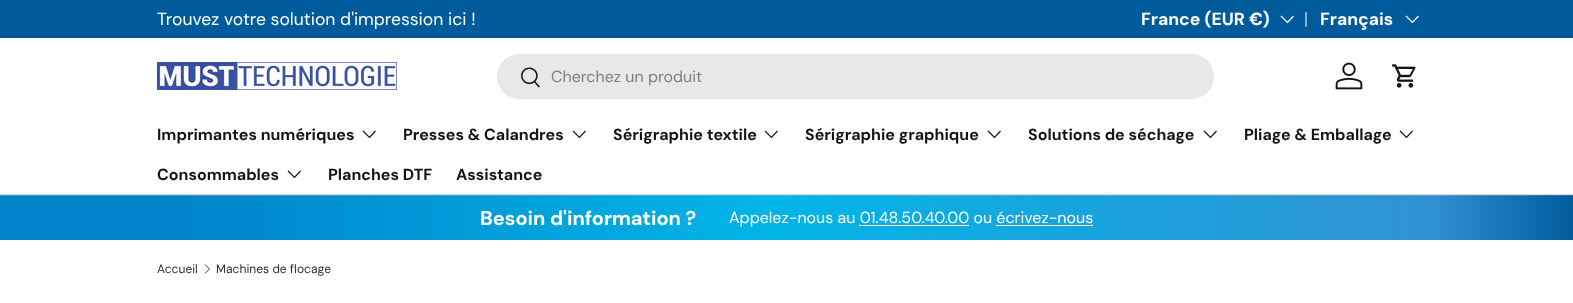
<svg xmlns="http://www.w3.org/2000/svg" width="1573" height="303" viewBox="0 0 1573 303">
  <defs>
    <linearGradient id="g1" gradientUnits="userSpaceOnUse" x1="0" y1="218" x2="1573" y2="218"><stop offset="0.11" stop-color="rgb(0,131,201)"/><stop offset="0.49" stop-color="rgb(2,181,232)"/><stop offset="0.91" stop-color="rgb(48,145,211)"/><stop offset="1" stop-color="rgb(0,91,157)"/></linearGradient>
    <linearGradient id="g2" gradientUnits="userSpaceOnUse" x1="0" y1="218" x2="1573" y2="218"><stop offset="0.11" stop-color="rgb(38,150,209)"/><stop offset="0.49" stop-color="rgb(40,192,235)"/><stop offset="0.91" stop-color="rgb(79,162,218)"/><stop offset="1" stop-color="rgb(38,116,172)"/></linearGradient>
  </defs>
  <rect width="100%" height="100%" fill="rgb(255,255,255)"/>
  <rect x="0" y="0" width="1573" height="38" fill="rgb(0,91,157)"/>
  <text x="157" y="25" font-family="'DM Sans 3'" font-size="17.6" fill="rgb(255,255,255)">Trouvez votre solution d'impression ici !</text>
  <text x="1141" y="25" font-family="'DM Sans 3'" font-size="17.6" font-weight="bold" fill="rgb(255,255,255)">France (EUR €)</text>
  <path d="M1293.5 16L1287.5 22.5L1281 16" fill="none" stroke="rgb(255,255,255)" stroke-width="1.2"/>
  <text x="1304" y="25" font-family="'DM Sans 3'" font-size="17.6" fill="rgb(179,206,226)">|</text>
  <text x="1320" y="25" font-family="'DM Sans 3'" font-size="17.6" font-weight="bold" fill="rgb(255,255,255)">Français</text>
  <path d="M1418.5 16L1412.5 22.5L1406 16" fill="none" stroke="rgb(255,255,255)" stroke-width="1.2"/>
  <rect x="0" y="194" width="1573" height="1" fill="rgb(220,220,220)"/>
  <image x="157" y="62" width="240" height="28" href="pic1.png"/>
  <rect x="497" y="54" width="717" height="45" rx="22.5" fill="rgb(232,232,232)"/>
  <image x="521" y="67" width="19" height="21" href="pic2.png"/>
  <text x="551" y="82" font-family="DM Sans" font-size="16" fill="rgb(126,126,128)">Cherchez un produit</text>
  <image x="1335" y="62" width="28" height="28" href="pic3.png"/>
  <image x="1392" y="64" width="24" height="24" href="pic4.png"/>
  <text x="157" y="140" font-family="'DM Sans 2'" font-size="16" font-weight="bold" fill="rgb(20,20,23)">Imprimantes numériques</text>
  <path d="M375.5 131L369.5 137.5L363 131" fill="none" stroke="rgb(20,20,23)" stroke-width="1.2"/>
  <text x="403" y="140" font-family="'DM Sans 2'" font-size="16" font-weight="bold" fill="rgb(20,20,23)">Presses &amp; Calandres</text>
  <path d="M585.5 131L579.5 137.5L573 131" fill="none" stroke="rgb(20,20,23)" stroke-width="1.2"/>
  <text x="613" y="140" font-family="'DM Sans 2'" font-size="16" font-weight="bold" fill="rgb(20,20,23)">Sérigraphie textile</text>
  <path d="M777.5 131L771.5 137.5L765 131" fill="none" stroke="rgb(20,20,23)" stroke-width="1.2"/>
  <text x="805" y="140" font-family="'DM Sans 2'" font-size="16" font-weight="bold" fill="rgb(20,20,23)">Sérigraphie graphique</text>
  <path d="M1000.5 131L994.5 137.5L988 131" fill="none" stroke="rgb(20,20,23)" stroke-width="1.2"/>
  <text x="1028" y="140" font-family="'DM Sans 2'" font-size="16" font-weight="bold" fill="rgb(20,20,23)">Solutions de séchage</text>
  <path d="M1216.5 131L1210.5 137.5L1204 131" fill="none" stroke="rgb(20,20,23)" stroke-width="1.2"/>
  <text x="1244" y="140" font-family="'DM Sans 2'" font-size="16" font-weight="bold" fill="rgb(20,20,23)">Pliage &amp; Emballage</text>
  <path d="M1412.5 131L1406.5 137.5L1400 131" fill="none" stroke="rgb(20,20,23)" stroke-width="1.2"/>
  <text x="157" y="180" font-family="'DM Sans 2'" font-size="16" font-weight="bold" fill="rgb(20,20,23)">Consommables</text>
  <path d="M300.5 171L294.5 177.5L288 171" fill="none" stroke="rgb(20,20,23)" stroke-width="1.2"/>
  <g font-family="'DM Sans 2'" font-size="16" font-weight="bold" fill="rgb(20,20,23)">
    <text x="328" y="180">Planches DTF</text>
    <text x="456" y="180">Assistance</text>
  </g>
  <rect x="0" y="196" width="1573" height="44" fill="url(#g1)"/>
  <rect x="0" y="195" width="1573" height="1" fill="url(#g2)"/>
  <text x="480" y="225" font-family="DM Sans" font-size="20" font-weight="bold" fill="rgb(255,255,255)">Besoin d'information ?</text>
  <text x="729" y="223" font-family="DM Sans" font-size="16" fill="rgb(255,255,255)">Appelez-nous au 01.48.50.40.00 ou écrivez-nous</text>
  <rect x="859" y="225" width="110" height="1" fill="rgb(255,255,255)"/>
  <rect x="996" y="225" width="97" height="1" fill="rgb(255,255,255)"/>
  <text x="157" y="273" font-family="'DM Sans 2'" font-size="12" fill="rgb(42,43,42)">Accueil</text>
  <path d="M205 264.5L209.5 269L205 273.5" fill="none" stroke="rgb(42,43,42)" stroke-width="0.9"/>
  <text x="216" y="273" font-family="'DM Sans 2'" font-size="12" fill="rgb(42,43,42)">Machines de flocage</text>
</svg>
